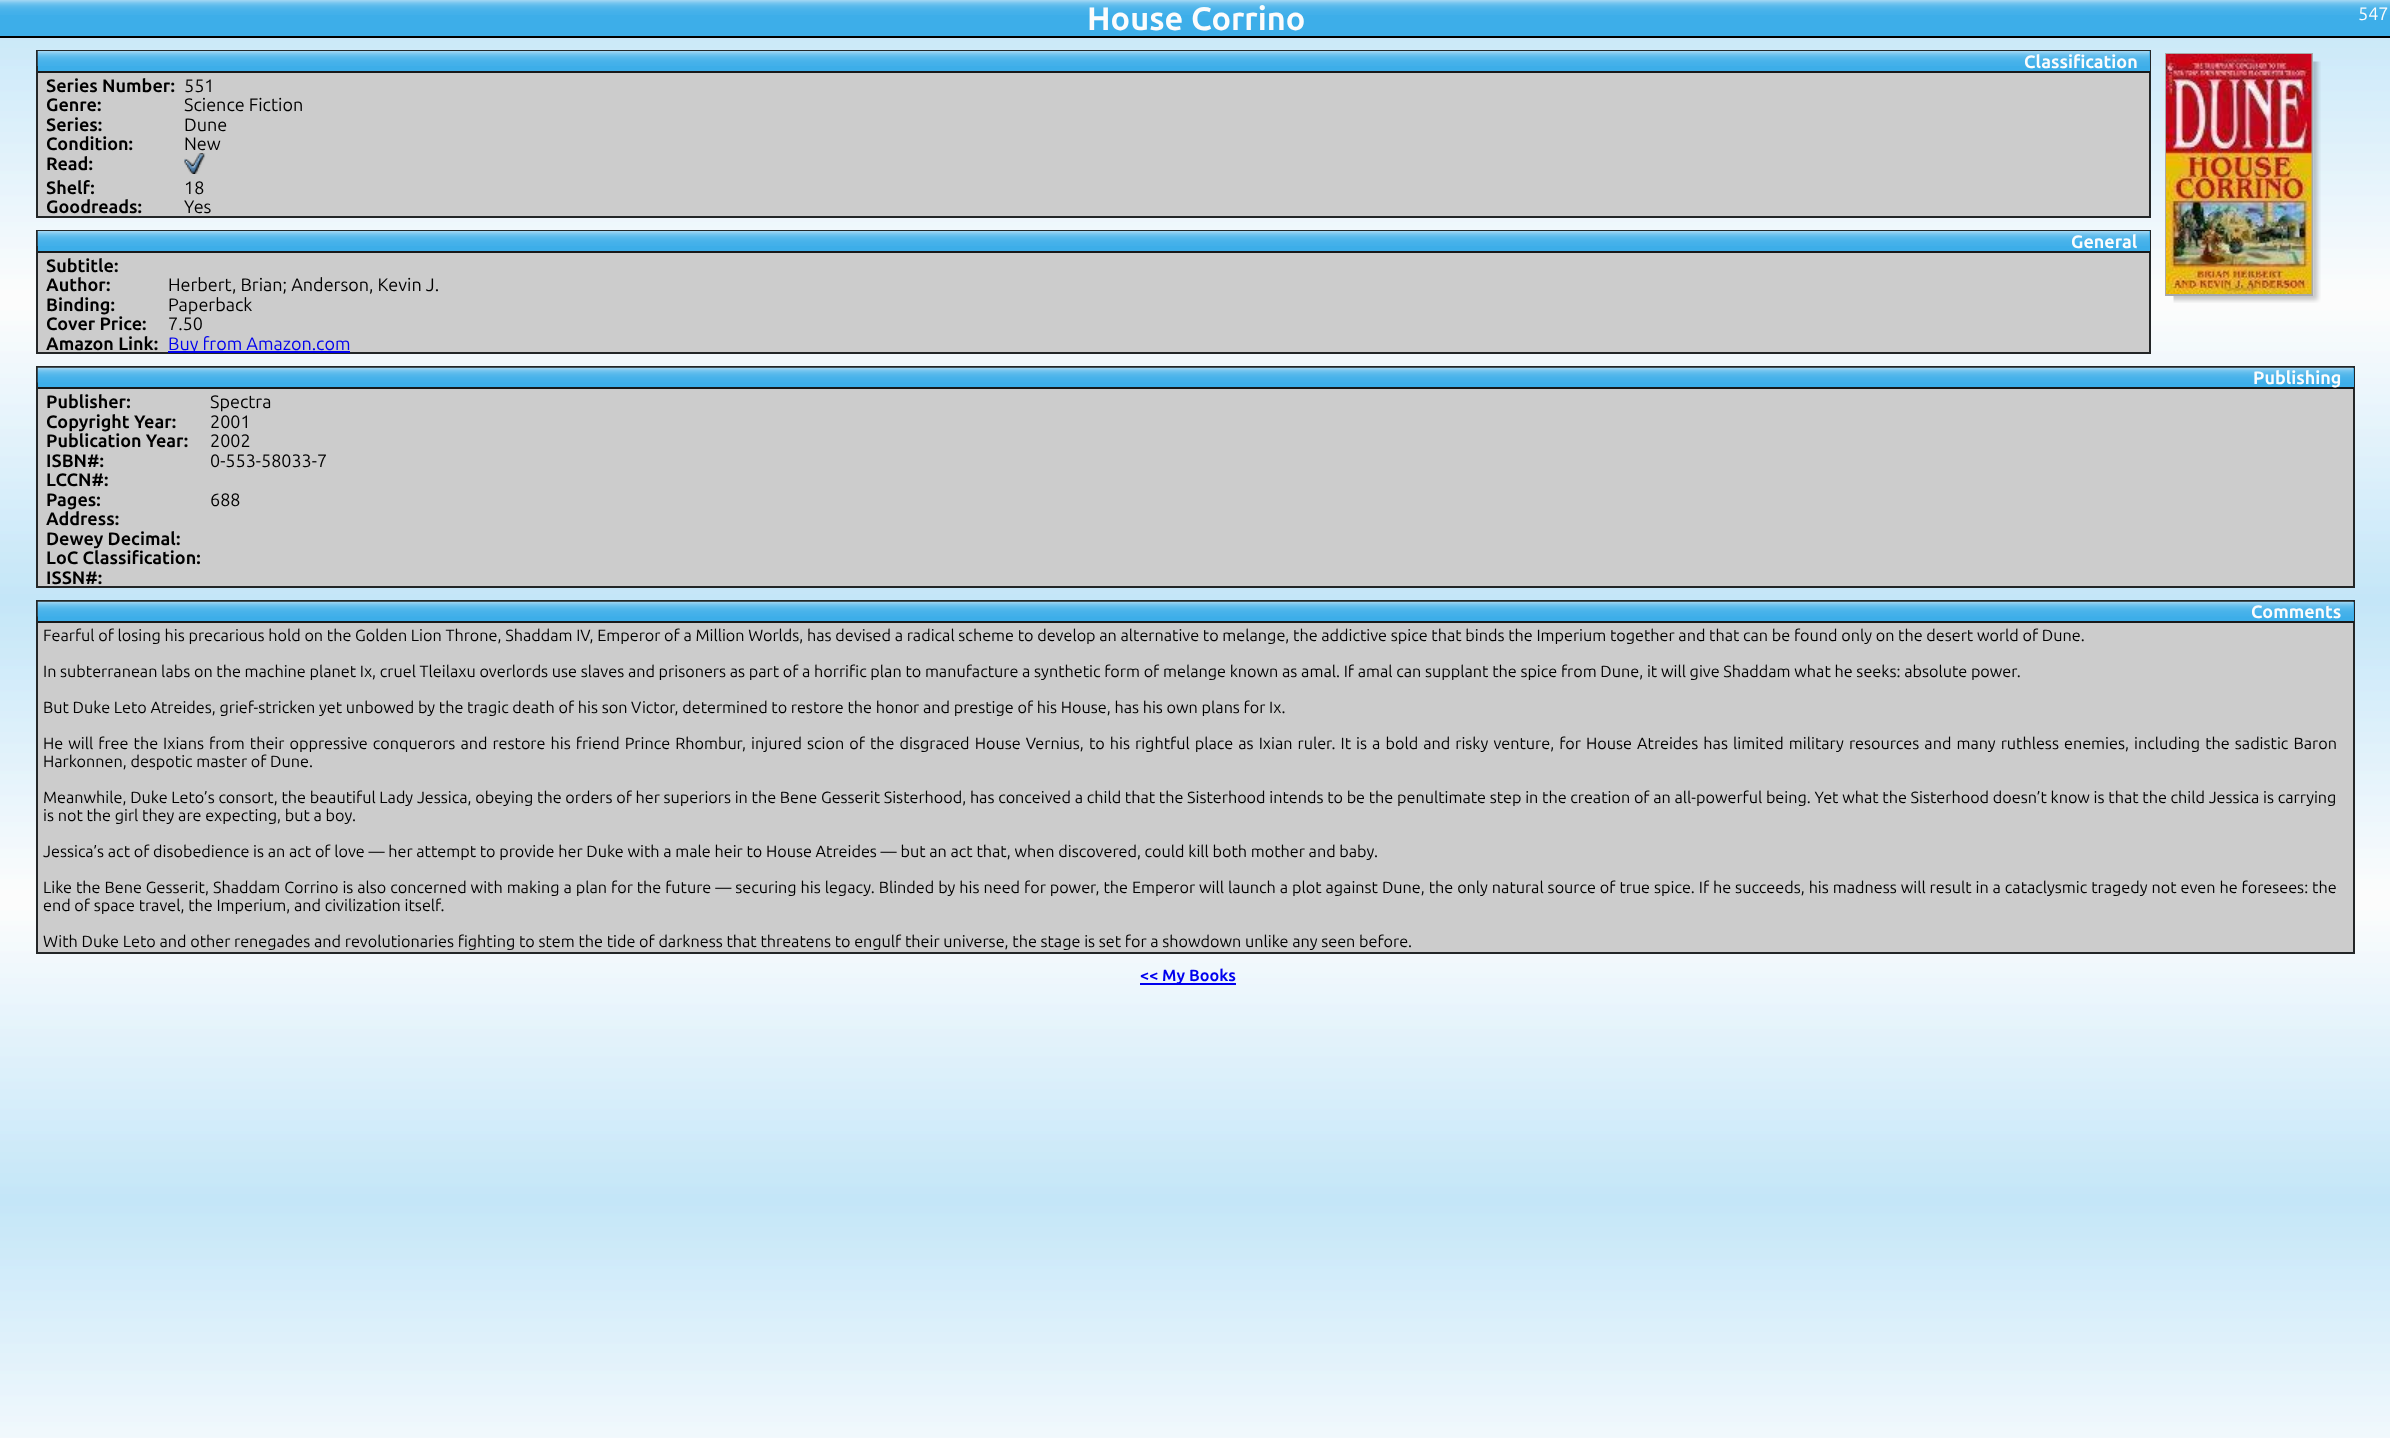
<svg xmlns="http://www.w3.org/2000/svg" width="2390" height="1438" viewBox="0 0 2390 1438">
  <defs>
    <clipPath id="clip1"><rect x="38" y="231" width="2112" height="122"/></clipPath>
  </defs>
  <rect width="100%" height="100%" fill="rgb(255,255,255)"/>
  <image x="0" y="38" width="2390" height="1400" href="pic1.png"/>
  <rect x="0" y="15" width="2390" height="21" fill="rgb(61,174,233)"/>
  <image x="0" y="0" width="2390" height="15" href="pic2.png"/>
  <rect x="0" y="36" width="2390" height="2" fill="rgb(0,0,0)"/>
  <text x="1087" y="30" font-family="Ubuntu" font-size="32.5" font-weight="bold" fill="rgb(252,252,252)">House Corrino</text>
  <text x="2358" y="20" font-family="Ubuntu" font-size="18" fill="rgb(252,252,252)">547</text>
  <image x="2173" y="61" width="148" height="242" href="pic3.png"/>
  <rect x="2166" y="54" width="146" height="241" fill="none" stroke="rgb(169,169,169)" stroke-width="2"/>
  <image x="2166" y="54" width="146" height="240" href="pic4.png"/>
  <rect x="38" y="73" width="2111" height="143" fill="rgb(204,204,204)"/>
  <rect x="37" y="51" width="2113" height="166" fill="none" stroke="rgb(35,38,39)" stroke-width="2"/>
  <rect x="38" y="51" width="2112" height="20" fill="rgb(61,174,233)"/>
  <image x="37" y="51" width="2113" height="15" href="pic5.png"/>
  <rect x="38" y="71" width="2112" height="2" fill="rgb(23,25,26)"/>
  <text x="2024" y="68" font-family="Ubuntu" font-size="18" font-weight="bold" fill="rgb(252,252,252)">Classification</text>
  <text x="46" y="92" font-family="Ubuntu" font-size="18" font-weight="bold" fill="rgb(0,0,0)">Series Number:</text>
  <text x="184" y="92" font-family="Ubuntu" font-size="18" fill="rgb(0,0,0)">551</text>
  <text x="46" y="111" font-family="Ubuntu" font-size="18" font-weight="bold" fill="rgb(0,0,0)">Genre:</text>
  <text x="184" y="111" font-family="Ubuntu" font-size="18" fill="rgb(0,0,0)">Science Fiction</text>
  <text x="46" y="131" font-family="Ubuntu" font-size="18" font-weight="bold" fill="rgb(0,0,0)">Series:</text>
  <text x="184" y="131" font-family="Ubuntu" font-size="18" fill="rgb(0,0,0)">Dune</text>
  <text x="46" y="150" font-family="Ubuntu" font-size="18" font-weight="bold" fill="rgb(0,0,0)">Condition:</text>
  <text x="184" y="150" font-family="Ubuntu" font-size="18" fill="rgb(0,0,0)">New</text>
  <text x="46" y="170" font-family="Ubuntu" font-size="18" font-weight="bold" fill="rgb(0,0,0)">Read:</text>
  <image x="184" y="153" width="22" height="21" href="pic6.png"/>
  <text x="46" y="194" font-family="Ubuntu" font-size="18" font-weight="bold" fill="rgb(0,0,0)">Shelf:</text>
  <text x="184" y="194" font-family="Ubuntu" font-size="18" fill="rgb(0,0,0)">18</text>
  <text x="46" y="213" font-family="Ubuntu" font-size="18" font-weight="bold" fill="rgb(0,0,0)">Goodreads:</text>
  <text x="184" y="213" font-family="Ubuntu" font-size="18" fill="rgb(0,0,0)">Yes</text>
  <rect x="38" y="253" width="2111" height="99" fill="rgb(204,204,204)"/>
  <rect x="37" y="231" width="2113" height="122" fill="none" stroke="rgb(35,38,39)" stroke-width="2"/>
  <rect x="38" y="231" width="2112" height="20" fill="rgb(61,174,233)"/>
  <image x="37" y="231" width="2113" height="15" href="pic5.png"/>
  <rect x="38" y="251" width="2112" height="2" fill="rgb(23,25,26)"/>
  <text x="2071" y="248" font-family="Ubuntu" font-size="18" font-weight="bold" fill="rgb(252,252,252)">General</text>
  <g font-family="Ubuntu" font-size="18" font-weight="bold" fill="rgb(0,0,0)">
    <text>
      <tspan x="46" y="272">Subtitle:</tspan>
      <tspan x="46" y="291">Author:</tspan>
    </text>
  </g>
  <text x="168" y="291" font-family="Ubuntu" font-size="18" fill="rgb(0,0,0)">Herbert, Brian; Anderson, Kevin J.</text>
  <text x="46" y="311" font-family="Ubuntu" font-size="18" font-weight="bold" fill="rgb(0,0,0)">Binding:</text>
  <text x="168" y="311" font-family="Ubuntu" font-size="18" fill="rgb(0,0,0)">Paperback</text>
  <text x="46" y="330" font-family="Ubuntu" font-size="18" font-weight="bold" fill="rgb(0,0,0)">Cover Price:</text>
  <text x="168" y="330" font-family="Ubuntu" font-size="18" fill="rgb(0,0,0)">7.50</text>
  <text x="46" y="350" font-family="Ubuntu" font-size="18" font-weight="bold" fill="rgb(0,0,0)">Amazon Link:</text>
  <rect x="168" y="351" width="182" height="2" fill="rgb(0,0,238)"/>
  <g clip-path="url(#clip1)">
    <text x="168" y="350" font-family="Ubuntu" font-size="18" fill="rgb(0,0,238)">Buy from Amazon.com</text>
  </g>
  <rect x="38" y="389" width="2315" height="197" fill="rgb(204,204,204)"/>
  <rect x="37" y="367" width="2317" height="220" fill="none" stroke="rgb(35,38,39)" stroke-width="2"/>
  <rect x="38" y="368" width="2316" height="19" fill="rgb(61,174,233)"/>
  <image x="37" y="367" width="2317" height="16" href="pic7.png"/>
  <rect x="38" y="387" width="2316" height="2" fill="rgb(23,25,26)"/>
  <text x="2253" y="384" font-family="Ubuntu" font-size="18" font-weight="bold" fill="rgb(252,252,252)">Publishing</text>
  <text x="46" y="408" font-family="Ubuntu" font-size="18" font-weight="bold" fill="rgb(0,0,0)">Publisher:</text>
  <text x="210" y="408" font-family="Ubuntu" font-size="18" fill="rgb(0,0,0)">Spectra</text>
  <text x="46" y="428" font-family="Ubuntu" font-size="18" font-weight="bold" fill="rgb(0,0,0)">Copyright Year:</text>
  <text x="210" y="428" font-family="Ubuntu" font-size="18" fill="rgb(0,0,0)">2001</text>
  <text x="46" y="447" font-family="Ubuntu" font-size="18" font-weight="bold" fill="rgb(0,0,0)">Publication Year:</text>
  <text x="210" y="447" font-family="Ubuntu" font-size="18" fill="rgb(0,0,0)">2002</text>
  <text x="46" y="467" font-family="Ubuntu" font-size="18" font-weight="bold" fill="rgb(0,0,0)">ISBN#:</text>
  <text x="210" y="467" font-family="Ubuntu" font-size="18" fill="rgb(0,0,0)">0-553-58033-7</text>
  <g font-family="Ubuntu" font-size="18" font-weight="bold" fill="rgb(0,0,0)">
    <text>
      <tspan x="46" y="486">LCCN#:</tspan>
      <tspan x="46" y="506">Pages:</tspan>
    </text>
  </g>
  <text x="210" y="506" font-family="Ubuntu" font-size="18" fill="rgb(0,0,0)">688</text>
  <g font-family="Ubuntu" font-size="18" font-weight="bold" fill="rgb(0,0,0)">
    <text>
      <tspan x="46" y="525">Address:</tspan>
      <tspan x="46" y="545">Dewey Decimal:</tspan>
      <tspan x="46" y="564">LoC Classification:</tspan>
      <tspan x="46" y="584">ISSN#:</tspan>
    </text>
  </g>
  <rect x="38" y="623" width="2315" height="329" fill="rgb(204,204,204)"/>
  <rect x="37" y="601" width="2317" height="352" fill="none" stroke="rgb(35,38,39)" stroke-width="2"/>
  <rect x="38" y="602" width="2316" height="19" fill="rgb(61,174,233)"/>
  <image x="37" y="601" width="2317" height="16" href="pic7.png"/>
  <rect x="38" y="621" width="2316" height="2" fill="rgb(23,25,26)"/>
  <text x="2251" y="618" font-family="Ubuntu" font-size="18" font-weight="bold" fill="rgb(252,252,252)">Comments</text>
  <g font-family="Ubuntu" font-size="16.2" fill="rgb(0,0,0)">
    <text x="43" y="641">Fearful of losing his precarious hold on the Golden Lion Throne, Shaddam IV, Emperor of a Million Worlds, has devised a radical scheme to develop an alternative to melange, the addictive spice that binds the Imperium together and that can be found only on the desert world of Dune.</text>
    <text x="43" y="677">In subterranean labs on the machine planet Ix, cruel Tleilaxu overlords use slaves and prisoners as part of a horrific plan to manufacture a synthetic form of melange known as amal. If amal can supplant the spice from Dune, it will give Shaddam what he seeks: absolute power.</text>
    <text x="43" y="713">But Duke Leto Atreides, grief-stricken yet unbowed by the tragic death of his son Victor, determined to restore the honor and prestige of his House, has his own plans for Ix.</text>
    <text>
      <tspan x="43" y="749" word-spacing="1.35">He will free the Ixians from their oppressive conquerors and restore his friend Prince Rhombur, injured scion of the disgraced House Vernius, to his rightful place as Ixian ruler. It is a bold and risky venture, for House Atreides has limited military resources and many ruthless enemies, including the sadistic Baron</tspan>
      <tspan x="43" y="767">Harkonnen, despotic master of Dune.</tspan>
    </text>
    <text>
      <tspan x="43" y="803">Meanwhile, Duke Leto’s consort, the beautiful Lady Jessica, obeying the orders of her superiors in the Bene Gesserit Sisterhood, has conceived a child that the Sisterhood intends to be the penultimate step in the creation of an all-powerful being. Yet what the Sisterhood doesn’t know is that the child Jessica is carrying</tspan>
      <tspan x="43" y="821">is not the girl they are expecting, but a boy.</tspan>
    </text>
    <text x="43" y="857">Jessica’s act of disobedience is an act of love — her attempt to provide her Duke with a male heir to House Atreides — but an act that, when discovered, could kill both mother and baby.</text>
    <text>
      <tspan x="43" y="893" word-spacing="0.23">Like the Bene Gesserit, Shaddam Corrino is also concerned with making a plan for the future — securing his legacy. Blinded by his need for power, the Emperor will launch a plot against Dune, the only natural source of true spice. If he succeeds, his madness will result in a cataclysmic tragedy not even he foresees: the</tspan>
      <tspan x="43" y="911">end of space travel, the Imperium, and civilization itself.</tspan>
    </text>
    <text x="43" y="947">With Duke Leto and other renegades and revolutionaries fighting to stem the tide of darkness that threatens to engulf their universe, the stage is set for a showdown unlike any seen before.</text>
  </g>
  <rect x="1140" y="983" width="96" height="2" fill="rgb(0,0,238)"/>
  <text x="1140" y="981" font-family="Ubuntu" font-size="16.2" font-weight="bold" fill="rgb(0,0,238)">&lt;&lt; My Books</text>
</svg>
